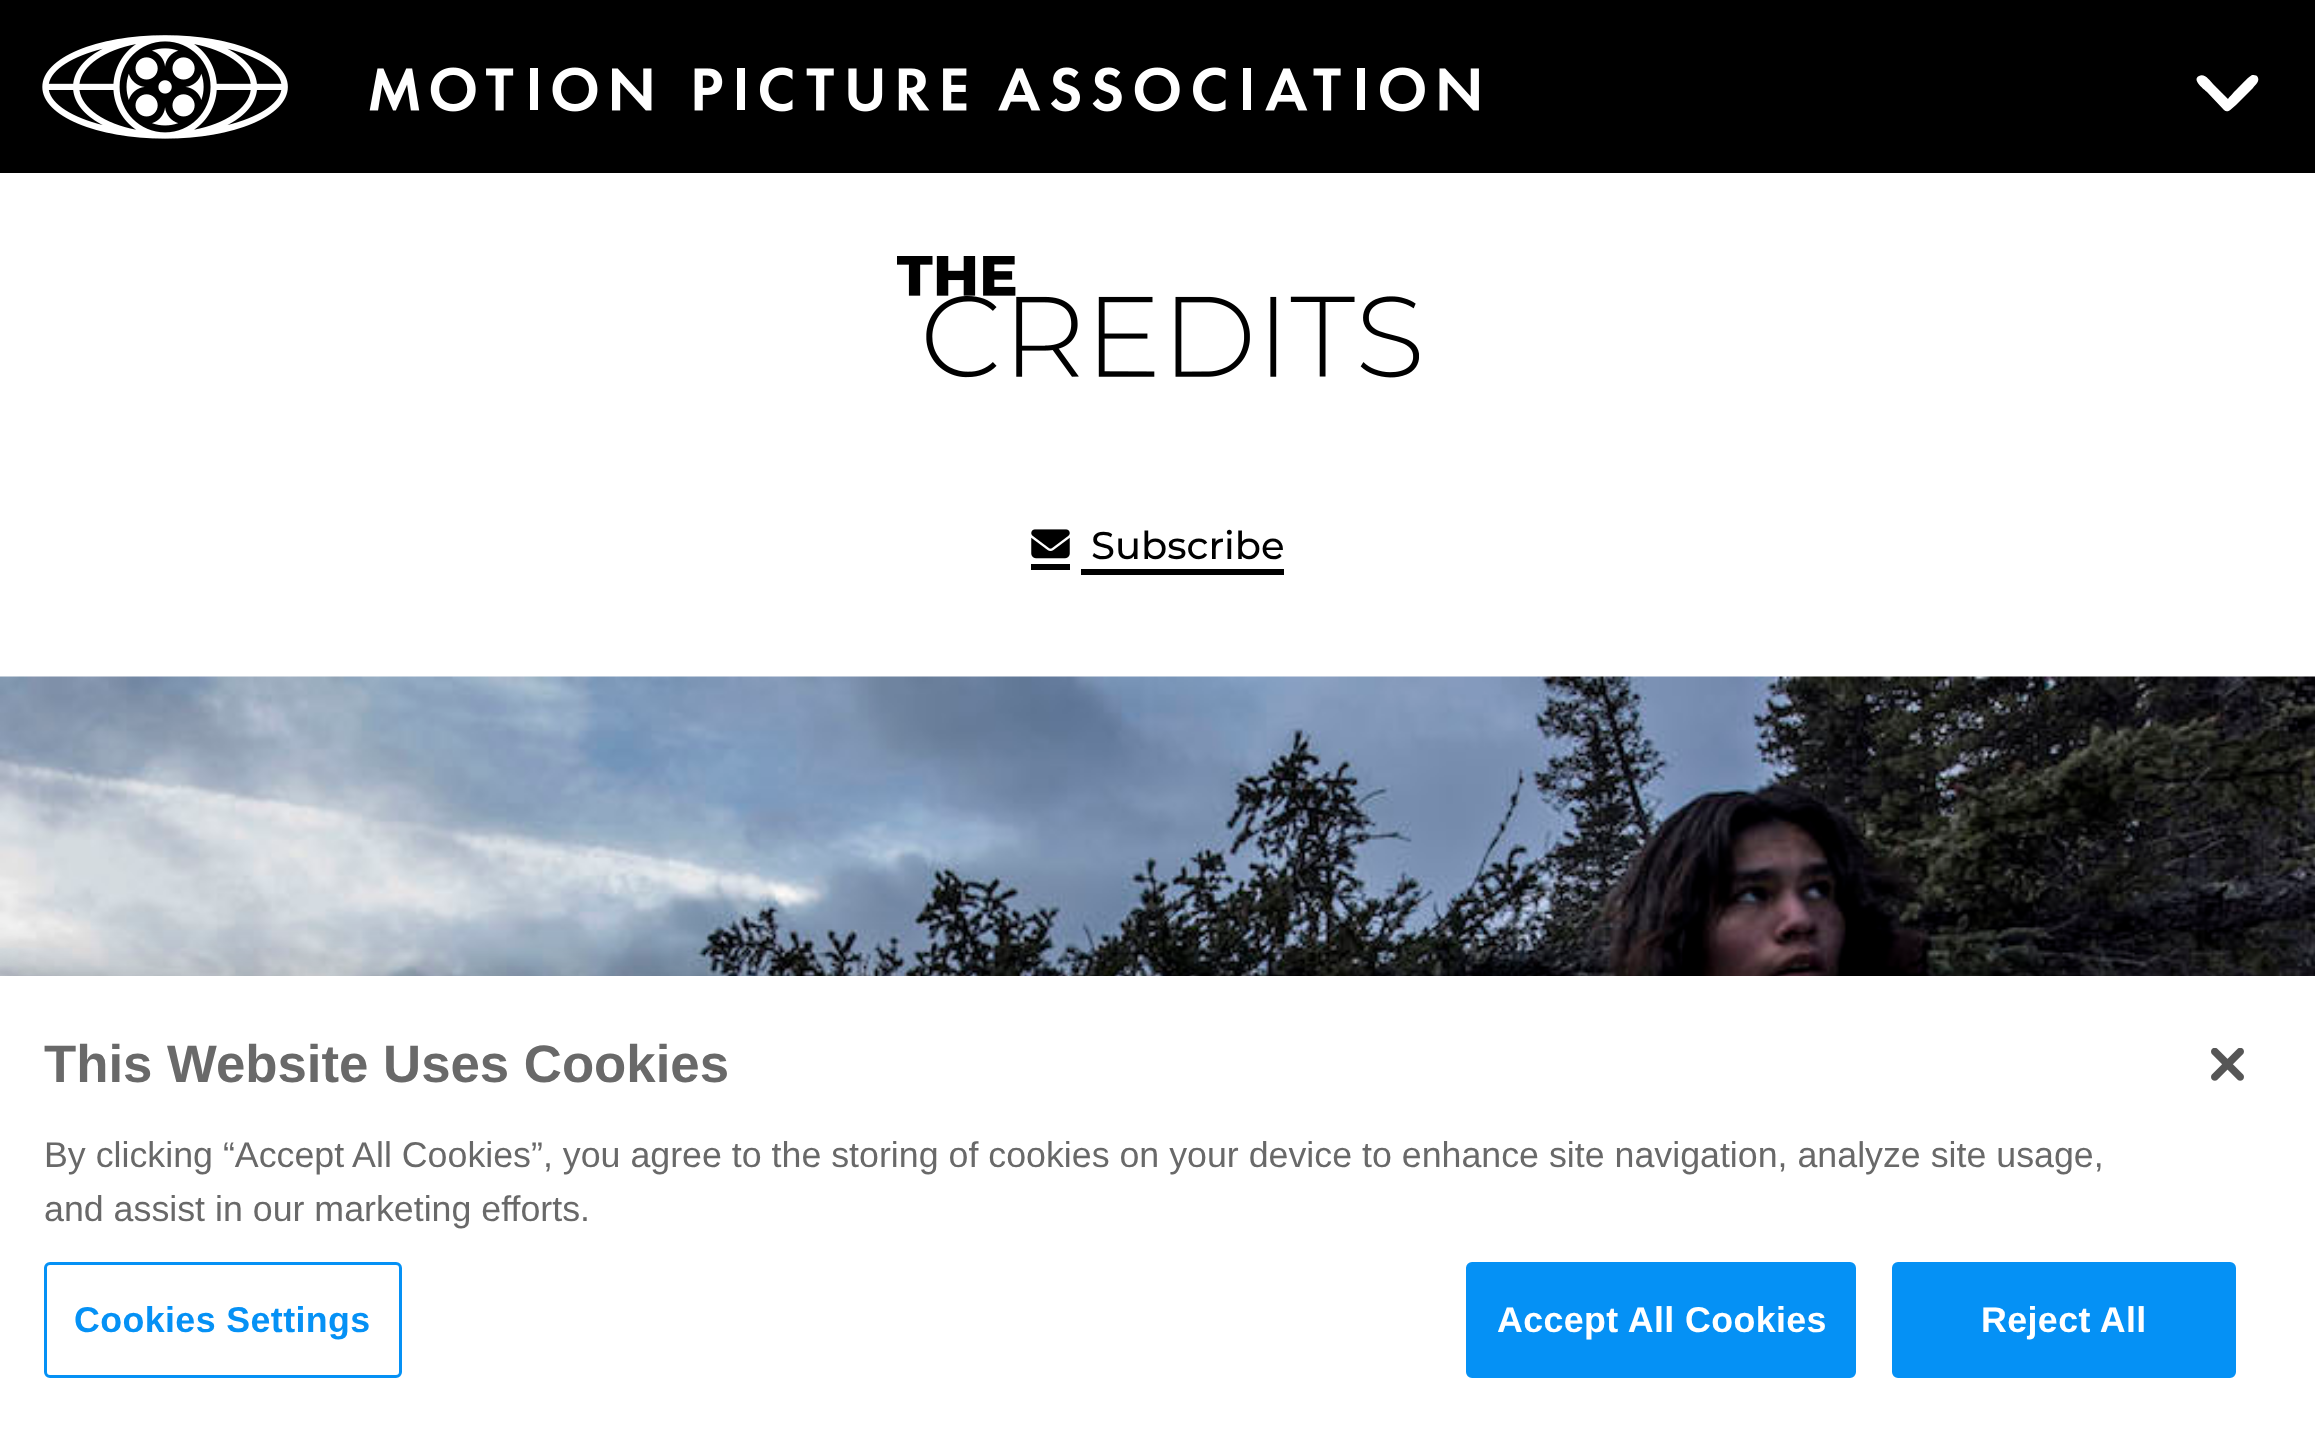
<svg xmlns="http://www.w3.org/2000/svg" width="2315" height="1432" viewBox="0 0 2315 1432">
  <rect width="100%" height="100%" fill="rgb(255,255,255)"/>
  <rect x="0" y="0" width="2315" height="173" fill="rgb(0,0,0)"/>
  <image x="42" y="35" width="1437" height="104" href="pic1.png"/>
  <path d="M2224 110C2228 114 2232 108 2236 105L2253 88C2255 85 2261 81 2257 76C2256 75 2254 75 2252 75C2249 76 2231 95 2228 99L2213 84C2210 81 2205 73 2199 76C2191 80 2205 90 2207 92Z" fill="rgb(255,255,255)"/>
  <image x="897" y="256" width="522" height="122" href="pic2.png"/>
  <rect x="1031" y="564" width="39" height="6" fill="rgb(0,0,0)"/>
  <rect x="1081" y="569" width="203" height="6" fill="rgb(0,0,0)"/>
  <image x="1031" y="529" width="39" height="30" href="pic3.png"/>
  <text x="1091" y="559" font-family="Montserrat" font-size="38.5" font-weight="500" fill="rgb(0,0,0)">Subscribe</text>
  <image x="0" y="676" width="2315" height="300" href="pic4.png"/>
  <rect x="0" y="976" width="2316" height="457" fill="rgba(0,0,0,0.2)" filter="blur(25px)"/>
  <rect x="0" y="976" width="2315" height="456" fill="rgb(255,255,255)"/>
  <text x="44" y="1082" font-family="Liberation Sans" font-size="52.75" font-weight="bold" fill="rgb(105,105,105)">This Website Uses Cookies</text>
  <g font-family="Liberation Sans" font-size="35.77" fill="rgb(105,105,105)">
    <text>
      <tspan x="44" y="1167">By clicking “Accept All Cookies”, you agree to the storing of cookies on your device to enhance site navigation, analyze site usage,</tspan>
      <tspan x="44" y="1221">and assist in our marketing efforts.</tspan>
    </text>
  </g>
  <rect x="45.5" y="1263.5" width="355" height="113" rx="4.5" fill="none" stroke="rgb(5,145,245)" stroke-width="3"/>
  <text x="74" y="1332" font-family="Liberation Sans" font-size="35.77" font-weight="bold" letter-spacing="0.4" fill="rgb(5,145,245)">Cookies Settings</text>
  <rect x="1467.5" y="1263.5" width="387" height="113" rx="4.5" fill="rgb(5,145,245)" stroke="rgb(5,145,245)" stroke-width="3"/>
  <text x="1497" y="1332" font-family="Liberation Sans" font-size="35.77" font-weight="bold" letter-spacing="0.4" fill="rgb(255,255,255)">Accept All Cookies</text>
  <rect x="1893.5" y="1263.5" width="341" height="113" rx="4.5" fill="rgb(5,145,245)" stroke="rgb(5,145,245)" stroke-width="3"/>
  <text x="1981" y="1332" font-family="Liberation Sans" font-size="35.77" font-weight="bold" letter-spacing="0.4" fill="rgb(255,255,255)">Reject All</text>
  <image x="2211" y="1048" width="33" height="33" href="pic5.png"/>
</svg>
